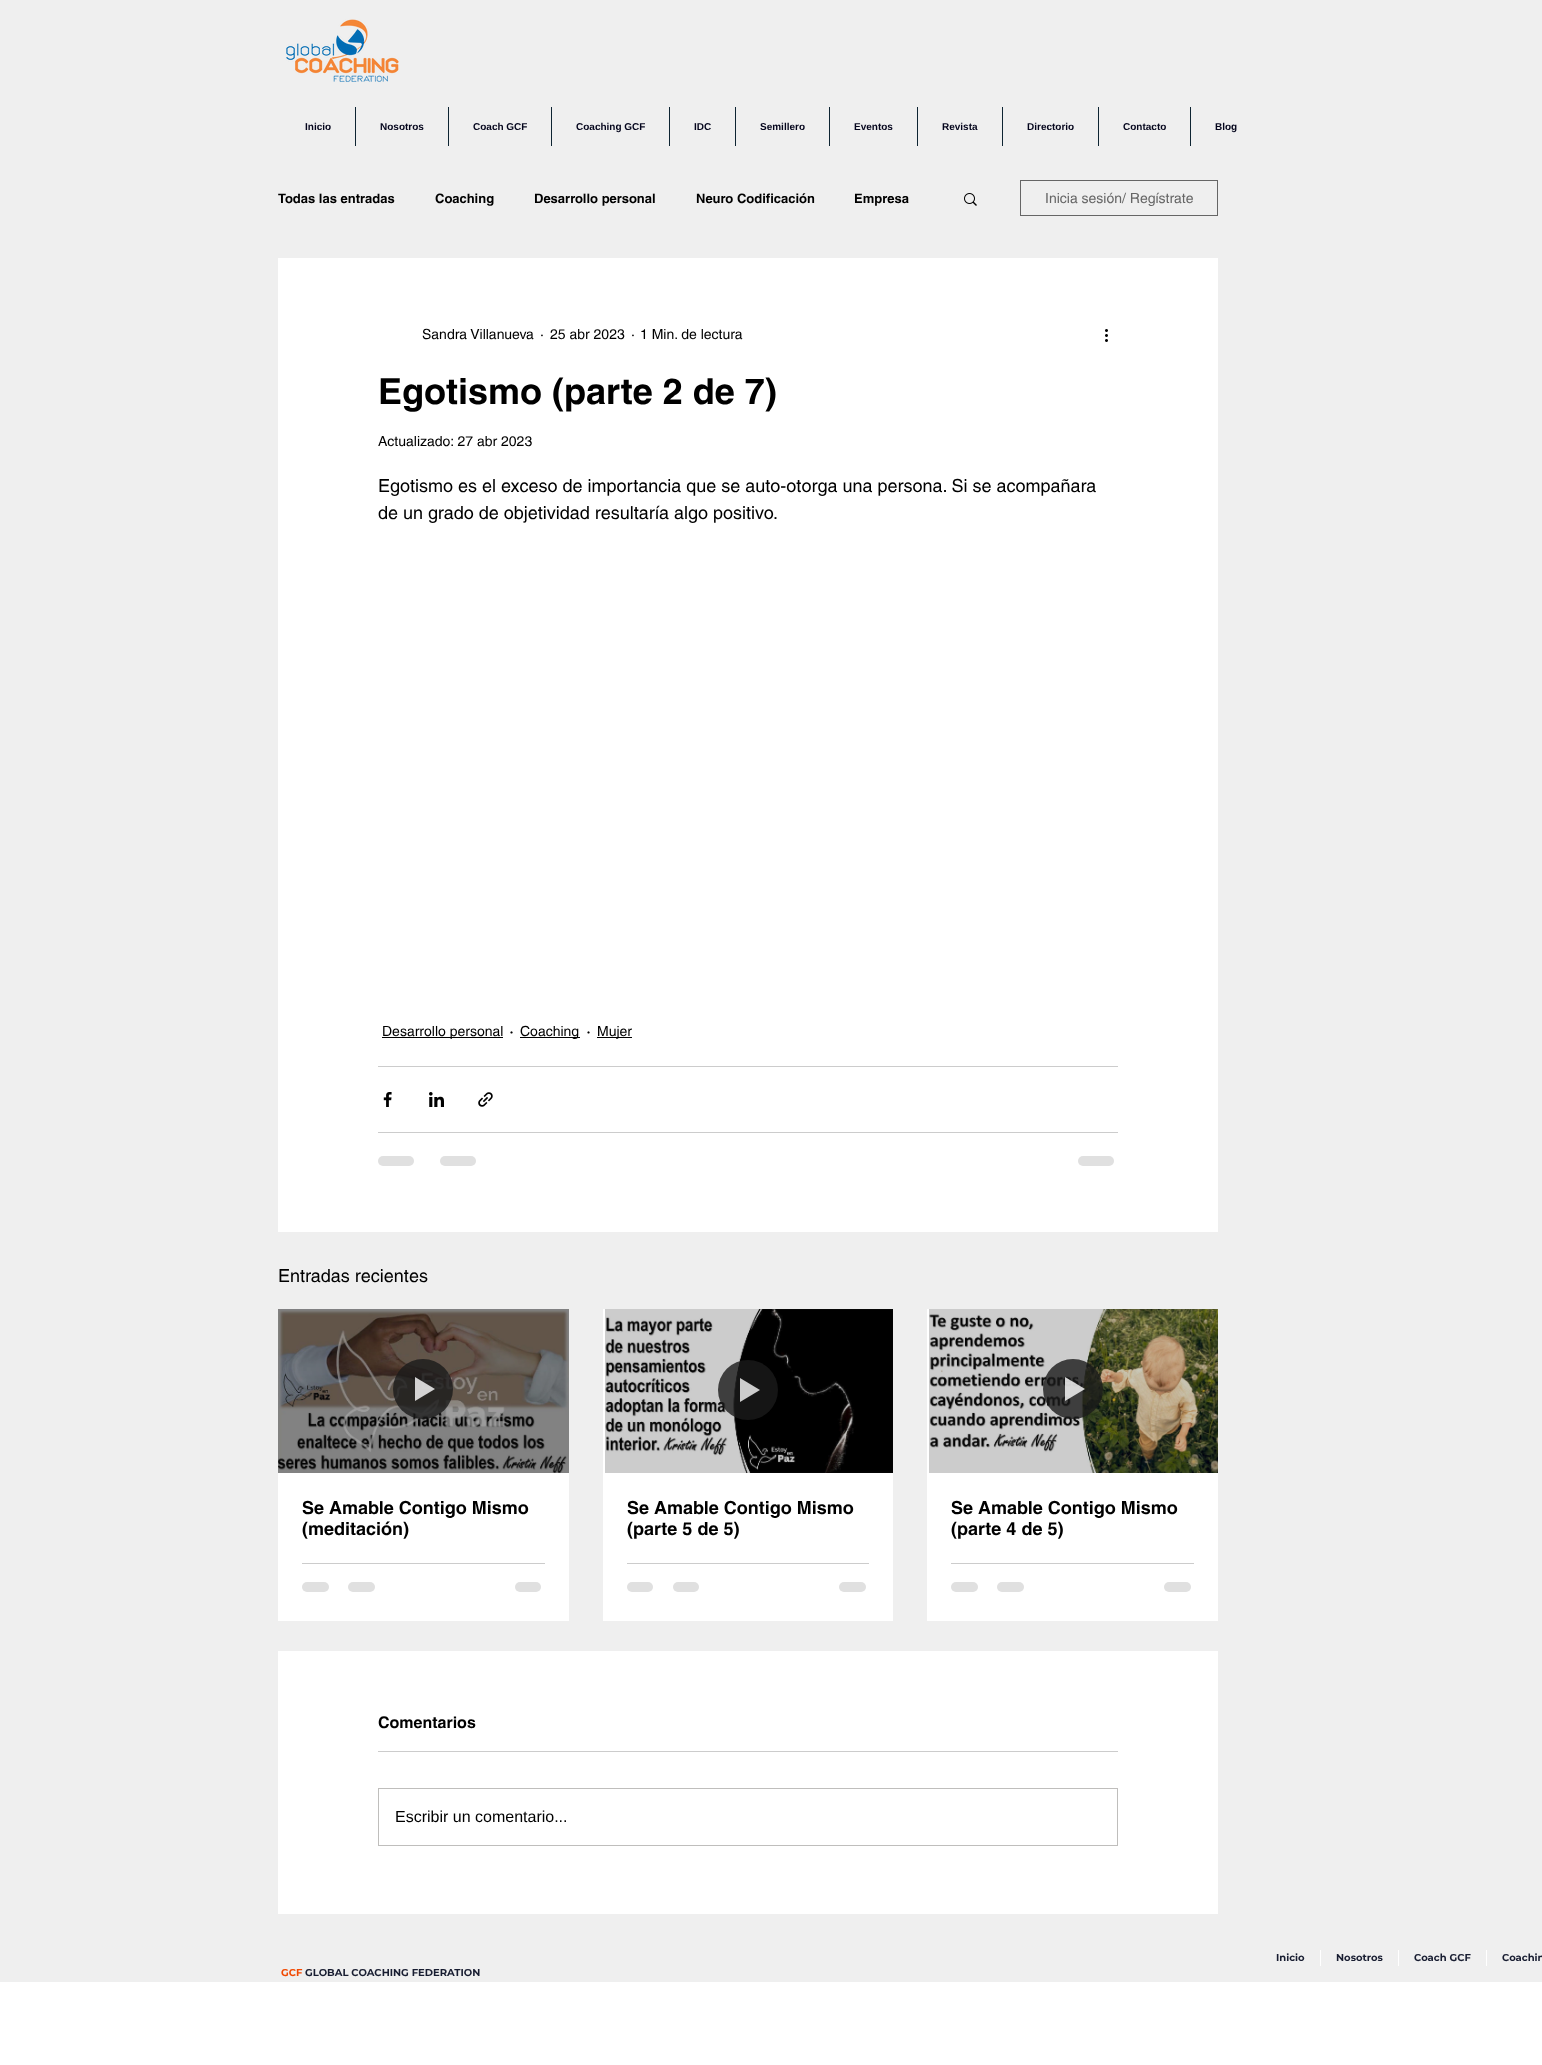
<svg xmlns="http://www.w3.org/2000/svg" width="1542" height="2065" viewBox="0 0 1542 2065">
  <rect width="100%" height="100%" fill="rgb(255,255,255)"/>
  <rect x="0" y="0" width="1542" height="1982" fill="rgb(239,239,239)"/>
  <image x="286" y="19" width="113" height="63" href="pic1.png"/>
  <text x="305" y="130" font-family="Liberation Sans" font-size="10" font-weight="bold" fill="rgb(4,5,28)">Inicio</text>
  <rect x="355" y="107" width="1" height="39" fill="rgb(14,36,50)"/>
  <text x="380" y="130" font-family="Liberation Sans" font-size="10" font-weight="bold" fill="rgb(4,5,28)">Nosotros</text>
  <rect x="448" y="107" width="1" height="39" fill="rgb(14,36,50)"/>
  <text x="473" y="130" font-family="Liberation Sans" font-size="10" font-weight="bold" fill="rgb(4,5,28)">Coach GCF</text>
  <rect x="551" y="107" width="1" height="39" fill="rgb(14,36,50)"/>
  <text x="576" y="130" font-family="Liberation Sans" font-size="10" font-weight="bold" fill="rgb(4,5,28)">Coaching GCF</text>
  <rect x="669" y="107" width="1" height="39" fill="rgb(14,36,50)"/>
  <text x="694" y="130" font-family="Liberation Sans" font-size="10" font-weight="bold" fill="rgb(4,5,28)">IDC</text>
  <rect x="735" y="107" width="1" height="39" fill="rgb(14,36,50)"/>
  <text x="760" y="130" font-family="Liberation Sans" font-size="10" font-weight="bold" fill="rgb(4,5,28)">Semillero</text>
  <rect x="829" y="107" width="1" height="39" fill="rgb(14,36,50)"/>
  <text x="854" y="130" font-family="Liberation Sans" font-size="10" font-weight="bold" fill="rgb(4,5,28)">Eventos</text>
  <rect x="917" y="107" width="1" height="39" fill="rgb(14,36,50)"/>
  <text x="942" y="130" font-family="Liberation Sans" font-size="10" font-weight="bold" fill="rgb(4,5,28)">Revista</text>
  <rect x="1002" y="107" width="1" height="39" fill="rgb(14,36,50)"/>
  <text x="1027" y="130" font-family="Liberation Sans" font-size="10" font-weight="bold" fill="rgb(4,5,28)">Directorio</text>
  <rect x="1098" y="107" width="1" height="39" fill="rgb(14,36,50)"/>
  <text x="1123" y="130" font-family="Liberation Sans" font-size="10" font-weight="bold" fill="rgb(4,5,28)">Contacto</text>
  <rect x="1190" y="107" width="1" height="39" fill="rgb(14,36,50)"/>
  <text x="1215" y="130" font-family="Liberation Sans" font-size="10" font-weight="bold" fill="rgb(4,5,28)">Blog</text>
  <g font-family="helvetica" font-size="13" font-weight="bold" fill="rgb(0,0,0)">
    <text x="278" y="203">Todas las entradas</text>
    <text x="435" y="203">Coaching</text>
    <text x="534" y="203">Desarrollo personal</text>
    <text x="696" y="203">Neuro Codificación</text>
    <text x="854" y="203">Empresa</text>
  </g>
  <image x="964" y="193" width="13" height="13" href="pic2.png"/>
  <rect x="1020.5" y="180.5" width="197" height="35" fill="none" stroke="rgb(102,102,102)"/>
  <text x="1045" y="203" font-family="helvetica" font-size="14" fill="rgb(102,102,102)">Inicia sesión/ Regístrate</text>
  <rect x="278" y="258" width="940" height="974" fill="rgb(255,255,255)"/>
  <g font-family="helvetica" font-size="14" fill="rgb(0,0,0)">
    <text x="422" y="339">Sandra Villanueva</text>
    <text x="540" y="339">·</text>
    <text x="550" y="339">25 abr 2023</text>
    <text x="631" y="339">·</text>
    <text x="640" y="339">1 Min. de lectura</text>
  </g>
  <image x="1105" y="329" width="3" height="13" href="pic3.png"/>
  <text x="378" y="404" font-family="helvetica" font-size="36" font-weight="bold" fill="rgb(0,0,0)">Egotismo (parte 2 de 7)</text>
  <text x="378" y="446" font-family="helvetica" font-size="14" fill="rgb(0,0,0)">Actualizado: 27 abr 2023</text>
  <g font-family="helvetica" font-size="18" fill="rgb(0,0,0)">
    <text>
      <tspan x="378" y="492">Egotismo es el exceso de importancia que se auto-otorga una persona. Si se acompañara</tspan>
      <tspan x="378" y="519">de un grado de objetividad resultaría algo positivo.</tspan>
    </text>
  </g>
  <rect x="382" y="1037" width="121" height="1" fill="rgb(0,0,0)"/>
  <text x="382" y="1036" font-family="helvetica" font-size="14" fill="rgb(0,0,0)">Desarrollo personal</text>
  <text x="509" y="1037" font-family="helvetica" font-size="18" fill="rgb(0,0,0)">·</text>
  <rect x="520" y="1037" width="60" height="1" fill="rgb(0,0,0)"/>
  <text x="520" y="1036" font-family="helvetica" font-size="14" fill="rgb(0,0,0)">Coaching</text>
  <text x="586" y="1037" font-family="helvetica" font-size="18" fill="rgb(0,0,0)">·</text>
  <rect x="597" y="1037" width="35" height="1" fill="rgb(0,0,0)"/>
  <text x="597" y="1036" font-family="helvetica" font-size="14" fill="rgb(0,0,0)">Mujer</text>
  <rect x="378" y="1066" width="740" height="1" fill="rgb(204,204,204)"/>
  <image x="383" y="1092" width="9" height="15" href="pic4.png"/>
  <image x="429" y="1092" width="15" height="15" href="pic5.png"/>
  <image x="478" y="1092" width="15" height="15" href="pic6.png"/>
  <rect x="378" y="1132" width="740" height="1" fill="rgb(204,204,204)"/>
  <rect x="378" y="1156" width="36" height="10" rx="5" fill="rgb(224,224,224)"/>
  <rect x="440" y="1156" width="36" height="10" rx="5" fill="rgb(224,224,224)"/>
  <rect x="1078" y="1156" width="36" height="10" rx="5" fill="rgb(224,224,224)"/>
  <text x="278" y="1282" font-family="helvetica" font-size="18" fill="rgb(0,0,0)">Entradas recientes</text>
  <rect x="278" y="1473" width="291" height="148" fill="rgb(255,255,255)"/>
  <image x="278" y="1309" width="291" height="164" href="pic7.png"/>
  <circle cx="423" cy="1389" r="30" fill="rgba(26,26,26,0.8)"/>
  <path d="M415 1377V1401L435 1389Z" fill="rgba(255,255,255,0.8)"/>
  <g font-family="helvetica" font-size="18" font-weight="bold" fill="rgb(0,0,0)">
    <text>
      <tspan x="302" y="1514">Se Amable Contigo Mismo</tspan>
      <tspan x="302" y="1535">(meditación)</tspan>
    </text>
  </g>
  <rect x="302" y="1563" width="243" height="1" fill="rgb(204,204,204)"/>
  <rect x="302" y="1582" width="27" height="10" rx="5" fill="rgb(224,224,224)"/>
  <rect x="348" y="1582" width="27" height="10" rx="5" fill="rgb(224,224,224)"/>
  <rect x="515" y="1582" width="26" height="10" rx="5" fill="rgb(224,224,224)"/>
  <rect x="603" y="1309" width="290" height="312" fill="rgb(255,255,255)"/>
  <image x="605" y="1309" width="288" height="164" href="pic8.png"/>
  <circle cx="748" cy="1390" r="30" fill="rgba(26,26,26,0.8)"/>
  <path d="M740 1378V1402L760 1390Z" fill="rgb(204,204,204)"/>
  <g font-family="helvetica" font-size="18" font-weight="bold" fill="rgb(0,0,0)">
    <text>
      <tspan x="627" y="1514">Se Amable Contigo Mismo</tspan>
      <tspan x="627" y="1535">(parte 5 de 5)</tspan>
    </text>
  </g>
  <rect x="627" y="1563" width="242" height="1" fill="rgb(204,204,204)"/>
  <rect x="627" y="1582" width="26" height="10" rx="5" fill="rgb(224,224,224)"/>
  <rect x="673" y="1582" width="26" height="10" rx="5" fill="rgb(224,224,224)"/>
  <rect x="839" y="1582" width="27" height="10" rx="5" fill="rgb(224,224,224)"/>
  <rect x="927" y="1309" width="291" height="312" fill="rgb(255,255,255)"/>
  <image x="929" y="1309" width="289" height="164" href="pic9.png"/>
  <circle cx="1073" cy="1389" r="30" fill="rgba(26,26,26,0.8)"/>
  <path d="M1065 1377V1401L1085 1389Z" fill="rgba(255,255,255,0.8)"/>
  <g font-family="helvetica" font-size="18" font-weight="bold" fill="rgb(0,0,0)">
    <text>
      <tspan x="951" y="1514">Se Amable Contigo Mismo</tspan>
      <tspan x="951" y="1535">(parte 4 de 5)</tspan>
    </text>
  </g>
  <rect x="951" y="1563" width="243" height="1" fill="rgb(204,204,204)"/>
  <rect x="951" y="1582" width="27" height="10" rx="5" fill="rgb(224,224,224)"/>
  <rect x="997" y="1582" width="27" height="10" rx="5" fill="rgb(224,224,224)"/>
  <rect x="1164" y="1582" width="27" height="10" rx="5" fill="rgb(224,224,224)"/>
  <rect x="278" y="1651" width="940" height="263" fill="rgb(255,255,255)"/>
  <text x="378" y="1728" font-family="helvetica" font-size="16" font-weight="bold" fill="rgb(0,0,0)">Comentarios</text>
  <rect x="378" y="1751" width="740" height="1" fill="rgb(204,204,204)"/>
  <rect x="378.5" y="1788.5" width="739" height="57" fill="none" stroke="rgb(191,190,188)"/>
  <text x="395" y="1822" font-family="Liberation Sans" font-size="16" fill="rgb(0,0,0)">Escribir un comentario...</text>
  <text x="1276" y="1961" font-family="Montserrat" font-size="10" font-weight="bold" fill="rgb(24,29,49)">Inicio</text>
  <rect x="1320" y="1950" width="1" height="16" fill="rgb(255,255,255)"/>
  <text x="1336" y="1961" font-family="Montserrat" font-size="10" font-weight="bold" fill="rgb(24,29,49)">Nosotros</text>
  <rect x="1398" y="1950" width="1" height="16" fill="rgb(255,255,255)"/>
  <text x="1414" y="1961" font-family="Montserrat" font-size="10" font-weight="bold" fill="rgb(24,29,49)">Coach GCF</text>
  <rect x="1486" y="1950" width="1" height="16" fill="rgb(255,255,255)"/>
  <text x="1502" y="1961" font-family="Montserrat" font-size="10" font-weight="bold" fill="rgb(24,29,49)">Coachin</text>
  <text x="281" y="1976" font-family="Montserrat" font-size="10" font-weight="bold" fill="rgb(241,73,2)">GCF</text>
  <text x="305" y="1976" font-family="Montserrat" font-size="10" font-weight="bold" fill="rgb(24,29,49)">GLOBAL COACHING FEDERATION</text>
</svg>
